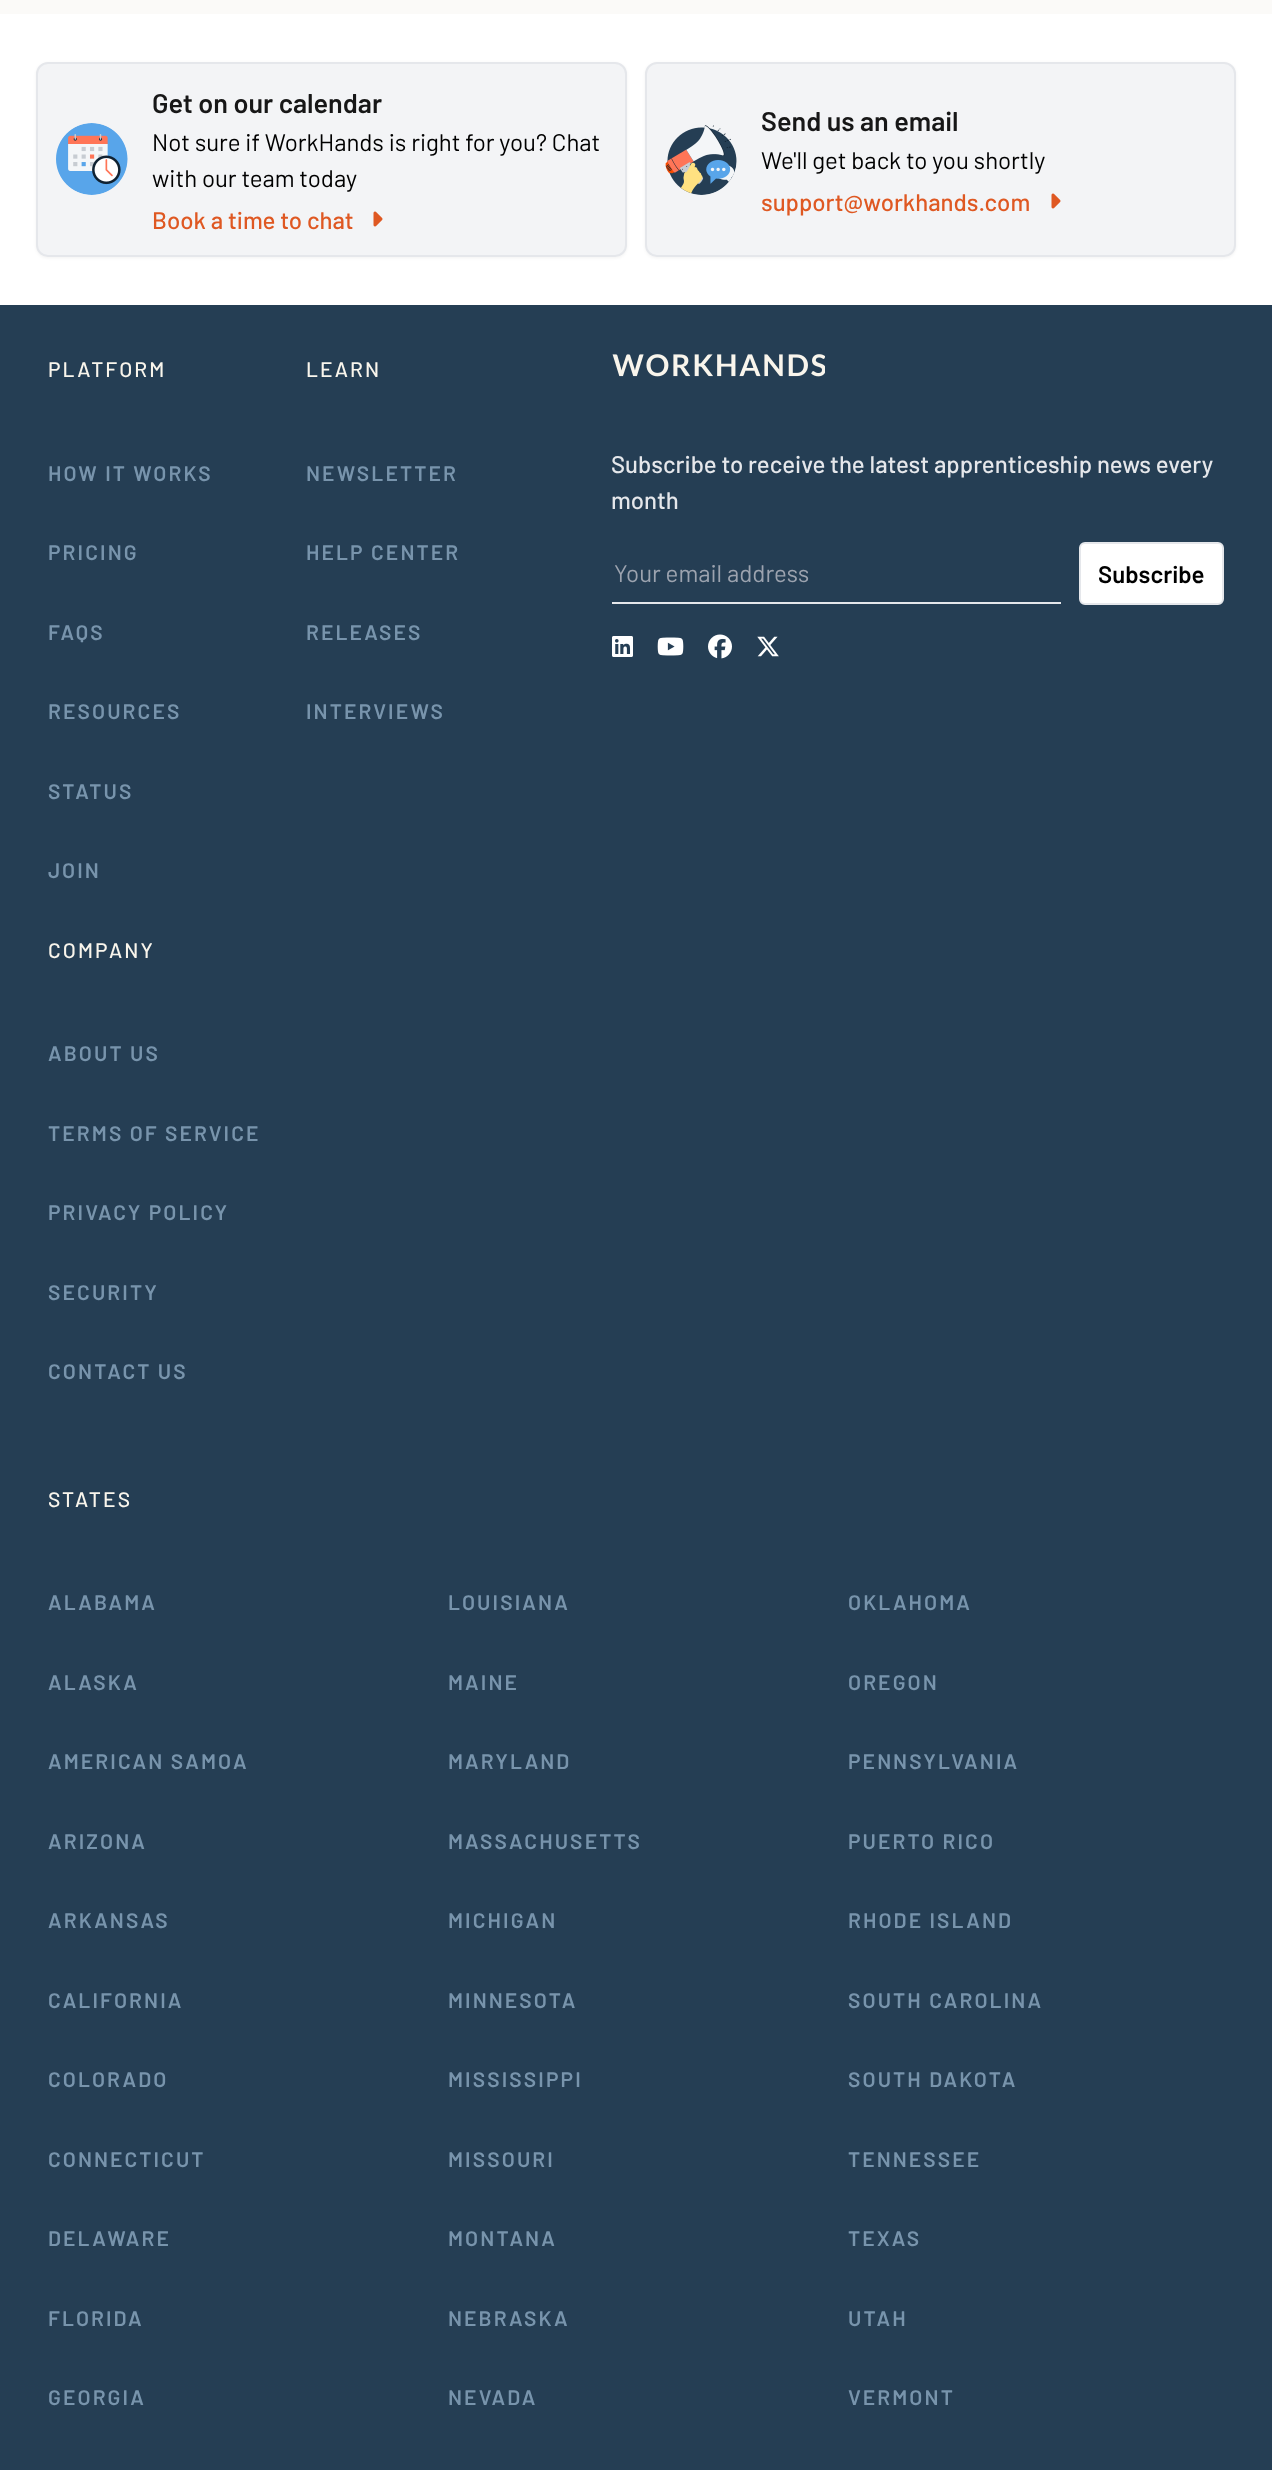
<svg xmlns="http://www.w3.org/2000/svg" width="1272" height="2470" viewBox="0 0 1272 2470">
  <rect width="100%" height="100%" fill="rgb(251,250,248)"/>
  <rect x="0" y="14" width="1272" height="291" fill="rgb(255,255,255)"/>
  <rect x="36" y="63" width="591" height="195" rx="12" fill="rgba(0,0,0,0.05)" filter="blur(1.5px)"/>
  <rect x="37" y="63" width="589" height="193" rx="11" fill="rgb(243,244,246)" stroke="rgb(229,231,235)" stroke-width="2"/>
  <image x="56" y="123" width="72" height="72" href="pic1.png"/>
  <text x="152" y="113" font-family="Barlow" font-size="27" font-weight="600" fill="rgb(23,23,23)">Get on our calendar</text>
  <g font-family="Barlow" font-size="24" fill="rgb(0,0,0)">
    <text>
      <tspan x="152" y="151">Not sure if WorkHands is right for you? Chat</tspan>
      <tspan x="152" y="187">with our team today</tspan>
    </text>
  </g>
  <text x="152" y="229" font-family="Barlow" font-size="24" font-weight="500" fill="rgb(223,88,34)">Book a time to chat</text>
  <image x="373" y="211" width="10" height="16" href="pic2.png"/>
  <rect x="645" y="63" width="591" height="195" rx="12" fill="rgba(0,0,0,0.05)" filter="blur(1.5px)"/>
  <rect x="646" y="63" width="589" height="193" rx="11" fill="rgb(243,244,246)" stroke="rgb(229,231,235)" stroke-width="2"/>
  <image x="665" y="125" width="72" height="70" href="pic3.png"/>
  <text x="761" y="131" font-family="Barlow" font-size="27" font-weight="600" fill="rgb(23,23,23)">Send us an email</text>
  <text x="761" y="169" font-family="Barlow" font-size="24" fill="rgb(0,0,0)">We'll get back to you shortly</text>
  <text x="761" y="211" font-family="Barlow" font-size="24" font-weight="500" fill="rgb(223,88,34)">support@workhands.com</text>
  <image x="1051" y="193" width="10" height="16" href="pic2.png"/>
  <rect x="0" y="305" width="1272" height="2165" fill="rgb(37,62,84)"/>
  <text x="48" y="377" font-family="Barlow" font-size="21" font-weight="500" letter-spacing="2.1" fill="rgb(249,245,236)">PLATFORM</text>
  <g font-family="Barlow" font-size="21" font-weight="600" letter-spacing="2.1" fill="rgb(120,148,172)">
    <text x="48" y="481">HOW IT WORKS</text>
    <text x="48" y="560">PRICING</text>
    <text x="48" y="640">FAQS</text>
    <text x="48" y="719">RESOURCES</text>
    <text x="48" y="799">STATUS</text>
    <text x="48" y="878">JOIN</text>
  </g>
  <text x="306" y="377" font-family="Barlow" font-size="21" font-weight="500" letter-spacing="2.1" fill="rgb(249,245,236)">LEARN</text>
  <g font-family="Barlow" font-size="21" font-weight="600" letter-spacing="2.1" fill="rgb(120,148,172)">
    <text x="306" y="481">NEWSLETTER</text>
    <text x="306" y="560">HELP CENTER</text>
    <text x="306" y="640">RELEASES</text>
    <text x="306" y="719">INTERVIEWS</text>
  </g>
  <text x="48" y="958" font-family="Barlow" font-size="21" font-weight="500" letter-spacing="2.1" fill="rgb(249,245,236)">COMPANY</text>
  <g font-family="Barlow" font-size="21" font-weight="600" letter-spacing="2.1" fill="rgb(120,148,172)">
    <text x="48" y="1061">ABOUT US</text>
    <text x="48" y="1141">TERMS OF SERVICE</text>
    <text x="48" y="1220">PRIVACY POLICY</text>
    <text x="48" y="1300">SECURITY</text>
    <text x="48" y="1379">CONTACT US</text>
  </g>
  <image x="612" y="354" width="213" height="23" href="pic4.png"/>
  <g font-family="Barlow" font-size="24" font-weight="500" fill="rgb(229,231,235)">
    <text>
      <tspan x="611" y="473">Subscribe to receive the latest apprenticeship news every</tspan>
      <tspan x="611" y="509">month</tspan>
    </text>
  </g>
  <rect x="612" y="602" width="449" height="2" fill="rgb(229,231,235)"/>
  <text x="614" y="582" font-family="Barlow" font-size="24" fill="rgb(156,163,175)">Your email address</text>
  <rect x="1080" y="543" width="143" height="61" rx="5" fill="rgb(255,255,255)" stroke="rgb(229,231,235)" stroke-width="2"/>
  <text x="1098" y="583" font-family="Barlow" font-size="24" font-weight="600" fill="rgb(0,0,0)">Subscribe</text>
  <image x="612" y="636" width="21" height="21" href="pic5.png"/>
  <image x="657" y="637" width="27" height="19" href="pic6.png"/>
  <image x="708" y="634" width="24" height="25" href="pic7.png"/>
  <image x="757" y="636" width="22" height="21" href="pic8.png"/>
  <text x="48" y="1507" font-family="Barlow" font-size="21" font-weight="500" letter-spacing="2.1" fill="rgb(249,245,236)">STATES</text>
  <g font-family="Barlow" font-size="21" font-weight="600" letter-spacing="2.1" fill="rgb(120,148,172)">
    <text x="48" y="1610">ALABAMA</text>
    <text x="448" y="1610">LOUISIANA</text>
    <text x="848" y="1610">OKLAHOMA</text>
    <text x="48" y="1690">ALASKA</text>
    <text x="448" y="1690">MAINE</text>
    <text x="848" y="1690">OREGON</text>
    <text x="48" y="1769">AMERICAN SAMOA</text>
    <text x="448" y="1769">MARYLAND</text>
    <text x="848" y="1769">PENNSYLVANIA</text>
    <text x="48" y="1849">ARIZONA</text>
    <text x="448" y="1849">MASSACHUSETTS</text>
    <text x="848" y="1849">PUERTO RICO</text>
    <text x="48" y="1928">ARKANSAS</text>
    <text x="448" y="1928">MICHIGAN</text>
    <text x="848" y="1928">RHODE ISLAND</text>
    <text x="48" y="2008">CALIFORNIA</text>
    <text x="448" y="2008">MINNESOTA</text>
    <text x="848" y="2008">SOUTH CAROLINA</text>
    <text x="48" y="2087">COLORADO</text>
    <text x="448" y="2087">MISSISSIPPI</text>
    <text x="848" y="2087">SOUTH DAKOTA</text>
    <text x="48" y="2167">CONNECTICUT</text>
    <text x="448" y="2167">MISSOURI</text>
    <text x="848" y="2167">TENNESSEE</text>
    <text x="48" y="2246">DELAWARE</text>
    <text x="448" y="2246">MONTANA</text>
    <text x="848" y="2246">TEXAS</text>
    <text x="48" y="2326">FLORIDA</text>
    <text x="448" y="2326">NEBRASKA</text>
    <text x="848" y="2326">UTAH</text>
    <text x="48" y="2405">GEORGIA</text>
    <text x="448" y="2405">NEVADA</text>
    <text x="848" y="2405">VERMONT</text>
  </g>
</svg>
